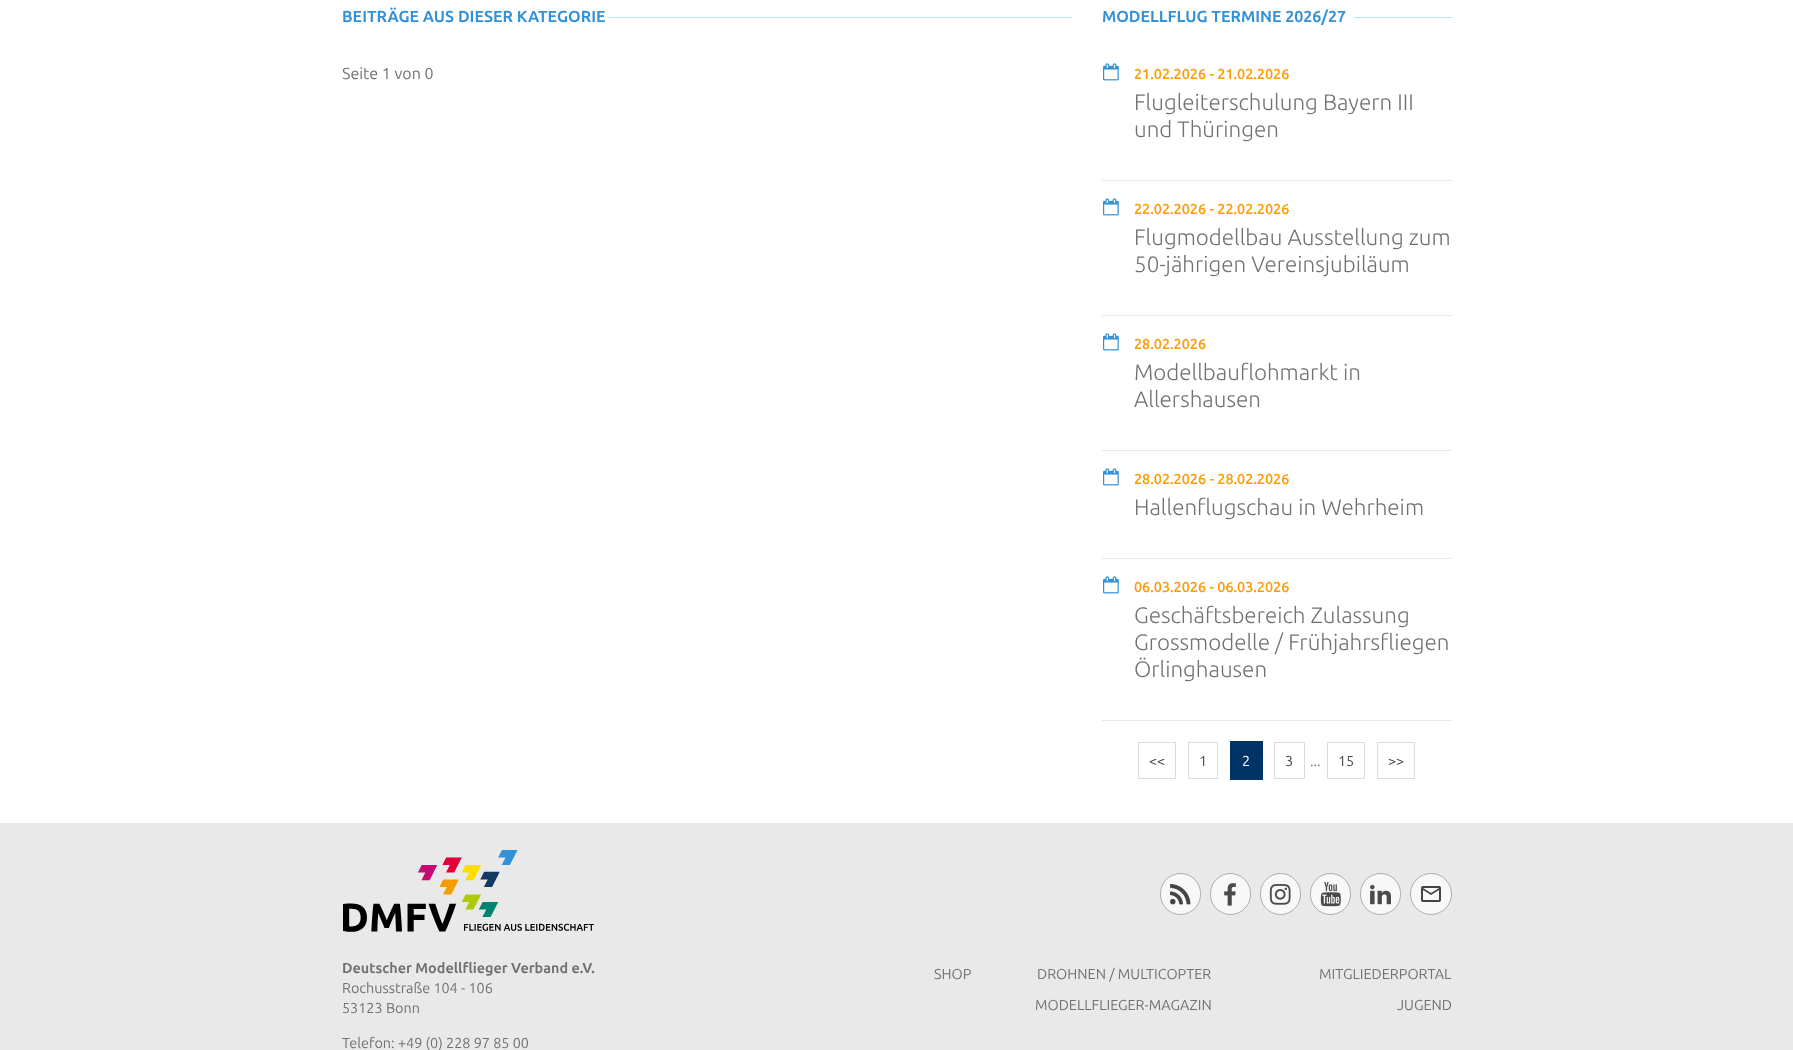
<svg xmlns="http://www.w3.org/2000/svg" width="1793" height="1050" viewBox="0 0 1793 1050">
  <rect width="100%" height="100%" fill="rgb(255,255,255)"/>
  <text x="342" y="22" font-family="Ubuntu" font-size="16" font-weight="bold" fill="rgb(51,145,216)">BEITRÄGE AUS DIESER KATEGORIE</text>
  <rect x="608" y="17" width="464" height="1" fill="rgb(184,224,255)"/>
  <text x="342" y="79" font-family="Ubuntu" font-size="16" fill="rgb(113,113,113)">Seite 1 von 0</text>
  <text x="1102" y="22" font-family="Ubuntu" font-size="16" font-weight="bold" fill="rgb(51,145,216)">MODELLFLUG TERMINE 2026/27</text>
  <rect x="1354" y="17" width="98" height="1" fill="rgb(184,224,255)"/>
  <rect x="1102" y="180" width="350" height="1" fill="rgb(233,233,233)"/>
  <image x="1103" y="63" width="16" height="18" href="pic1.png"/>
  <text x="1134" y="79" font-family="Ubuntu" font-size="14.4" font-weight="600" fill="rgb(255,155,0)">21.02.2026 - 21.02.2026</text>
  <g font-family="Ubuntu" font-size="22.4" font-weight="300" fill="rgb(113,113,113)">
    <text>
      <tspan x="1134" y="110">Flugleiterschulung Bayern III</tspan>
      <tspan x="1134" y="137">und Thüringen</tspan>
    </text>
  </g>
  <rect x="1102" y="315" width="350" height="1" fill="rgb(233,233,233)"/>
  <image x="1103" y="198" width="16" height="18" href="pic1.png"/>
  <text x="1134" y="214" font-family="Ubuntu" font-size="14.4" font-weight="600" fill="rgb(255,155,0)">22.02.2026 - 22.02.2026</text>
  <g font-family="Ubuntu" font-size="22.4" font-weight="300" fill="rgb(113,113,113)">
    <text>
      <tspan x="1134" y="245">Flugmodellbau Ausstellung zum</tspan>
      <tspan x="1134" y="272">50-jährigen Vereinsjubiläum</tspan>
    </text>
  </g>
  <rect x="1102" y="450" width="350" height="1" fill="rgb(233,233,233)"/>
  <image x="1103" y="333" width="16" height="18" href="pic1.png"/>
  <text x="1134" y="349" font-family="Ubuntu" font-size="14.4" font-weight="600" fill="rgb(255,155,0)">28.02.2026</text>
  <g font-family="Ubuntu" font-size="22.4" font-weight="300" fill="rgb(113,113,113)">
    <text>
      <tspan x="1134" y="380">Modellbauflohmarkt in</tspan>
      <tspan x="1134" y="407">Allershausen</tspan>
    </text>
  </g>
  <rect x="1102" y="558" width="350" height="1" fill="rgb(233,233,233)"/>
  <image x="1103" y="468" width="16" height="18" href="pic1.png"/>
  <text x="1134" y="484" font-family="Ubuntu" font-size="14.4" font-weight="600" fill="rgb(255,155,0)">28.02.2026 - 28.02.2026</text>
  <text x="1134" y="515" font-family="Ubuntu" font-size="22.4" font-weight="300" fill="rgb(113,113,113)">Hallenflugschau in Wehrheim</text>
  <rect x="1102" y="720" width="350" height="1" fill="rgb(233,233,233)"/>
  <image x="1103" y="576" width="16" height="18" href="pic1.png"/>
  <text x="1134" y="592" font-family="Ubuntu" font-size="14.4" font-weight="600" fill="rgb(255,155,0)">06.03.2026 - 06.03.2026</text>
  <g font-family="Ubuntu" font-size="22.4" font-weight="300" fill="rgb(113,113,113)">
    <text>
      <tspan x="1134" y="623">Geschäftsbereich Zulassung</tspan>
      <tspan x="1134" y="650">Grossmodelle / Frühjahrsfliegen</tspan>
      <tspan x="1134" y="677">Örlinghausen</tspan>
    </text>
  </g>
  <rect x="1138.5" y="742.5" width="37" height="36" fill="none" stroke="rgb(220,220,220)"/>
  <text x="1149" y="766" font-family="Ubuntu" font-size="14.4" fill="rgb(68,68,68)">&lt;&lt;</text>
  <rect x="1188.5" y="742.5" width="29" height="36" fill="none" stroke="rgb(220,220,220)"/>
  <text x="1199" y="766" font-family="Ubuntu" font-size="14.4" fill="rgb(68,68,68)">1</text>
  <rect x="1230" y="741" width="33" height="39" fill="rgb(0,51,102)"/>
  <text x="1242" y="766" font-family="Ubuntu" font-size="14.4" fill="rgb(255,255,255)">2</text>
  <rect x="1274.5" y="742.5" width="30" height="36" fill="none" stroke="rgb(220,220,220)"/>
  <text x="1285" y="766" font-family="Ubuntu" font-size="14.4" fill="rgb(68,68,68)">3</text>
  <rect x="1327.5" y="742.5" width="37" height="36" fill="none" stroke="rgb(220,220,220)"/>
  <text x="1338" y="766" font-family="Ubuntu" font-size="14.4" fill="rgb(68,68,68)">15</text>
  <rect x="1377.5" y="742.5" width="37" height="36" fill="none" stroke="rgb(220,220,220)"/>
  <text x="1388" y="766" font-family="Ubuntu" font-size="14.4" fill="rgb(68,68,68)">&gt;&gt;</text>
  <text x="1310" y="766" font-family="Ubuntu" font-size="14.4" fill="rgb(113,113,113)">...</text>
  <rect x="0" y="823" width="1793" height="227" fill="rgb(233,233,233)"/>
  <image x="343" y="850" width="251" height="82" href="pic2.png"/>
  <text x="342" y="973" font-family="Ubuntu" font-size="14.4" font-weight="bold" fill="rgb(113,113,113)">Deutscher Modellflieger Verband e.V.</text>
  <g font-family="Ubuntu" font-size="14.4" fill="rgb(113,113,113)">
    <text>
      <tspan x="342" y="993">Rochusstraße 104 - 106</tspan>
      <tspan x="342" y="1013">53123 Bonn</tspan>
    </text>
    <text x="342" y="1048">Telefon: +49 (0) 228 97 85 00</text>
  </g>
  <rect x="1160" y="873" width="41" height="42" rx="20.5" fill="rgb(248,248,248)"/>
  <rect x="1160.5" y="873.5" width="40" height="41" rx="20" fill="none" stroke="rgba(0,0,0,0.3)"/>
  <image x="1170" y="884" width="21" height="21" href="pic3.png"/>
  <rect x="1210" y="873" width="41" height="42" rx="20.5" fill="rgb(248,248,248)"/>
  <rect x="1210.5" y="873.5" width="40" height="41" rx="20" fill="none" stroke="rgba(0,0,0,0.3)"/>
  <image x="1224" y="883" width="12" height="23" href="pic4.png"/>
  <rect x="1260" y="873" width="41" height="42" rx="20.5" fill="rgb(248,248,248)"/>
  <rect x="1260.5" y="873.5" width="40" height="41" rx="20" fill="none" stroke="rgba(0,0,0,0.3)"/>
  <image x="1269" y="884" width="22" height="21" href="pic5.png"/>
  <rect x="1310" y="873" width="41" height="42" rx="20.5" fill="rgb(248,248,248)"/>
  <rect x="1310.5" y="873.5" width="40" height="41" rx="20" fill="none" stroke="rgba(0,0,0,0.3)"/>
  <image x="1320" y="882" width="21" height="25" href="pic6.png"/>
  <rect x="1360" y="873" width="41" height="42" rx="20.5" fill="rgb(248,248,248)"/>
  <rect x="1360.5" y="873.5" width="40" height="41" rx="20" fill="none" stroke="rgba(0,0,0,0.3)"/>
  <image x="1370" y="884" width="21" height="21" href="pic7.png"/>
  <circle cx="1431" cy="894" r="21" fill="rgb(248,248,248)"/>
  <circle cx="1431" cy="894" r="20.5" fill="none" stroke="rgba(0,0,0,0.3)"/>
  <image x="1421" y="886" width="20" height="16" href="pic8.png"/>
  <g font-family="Ubuntu" font-size="14.4" fill="rgb(113,113,113)">
    <text x="934" y="979">SHOP</text>
    <text x="1037" y="979">DROHNEN / MULTICOPTER</text>
    <text x="1035" y="1010">MODELLFLIEGER-MAGAZIN</text>
    <text x="1319" y="979">MITGLIEDERPORTAL</text>
    <text x="1397" y="1010">JUGEND</text>
  </g>
</svg>
